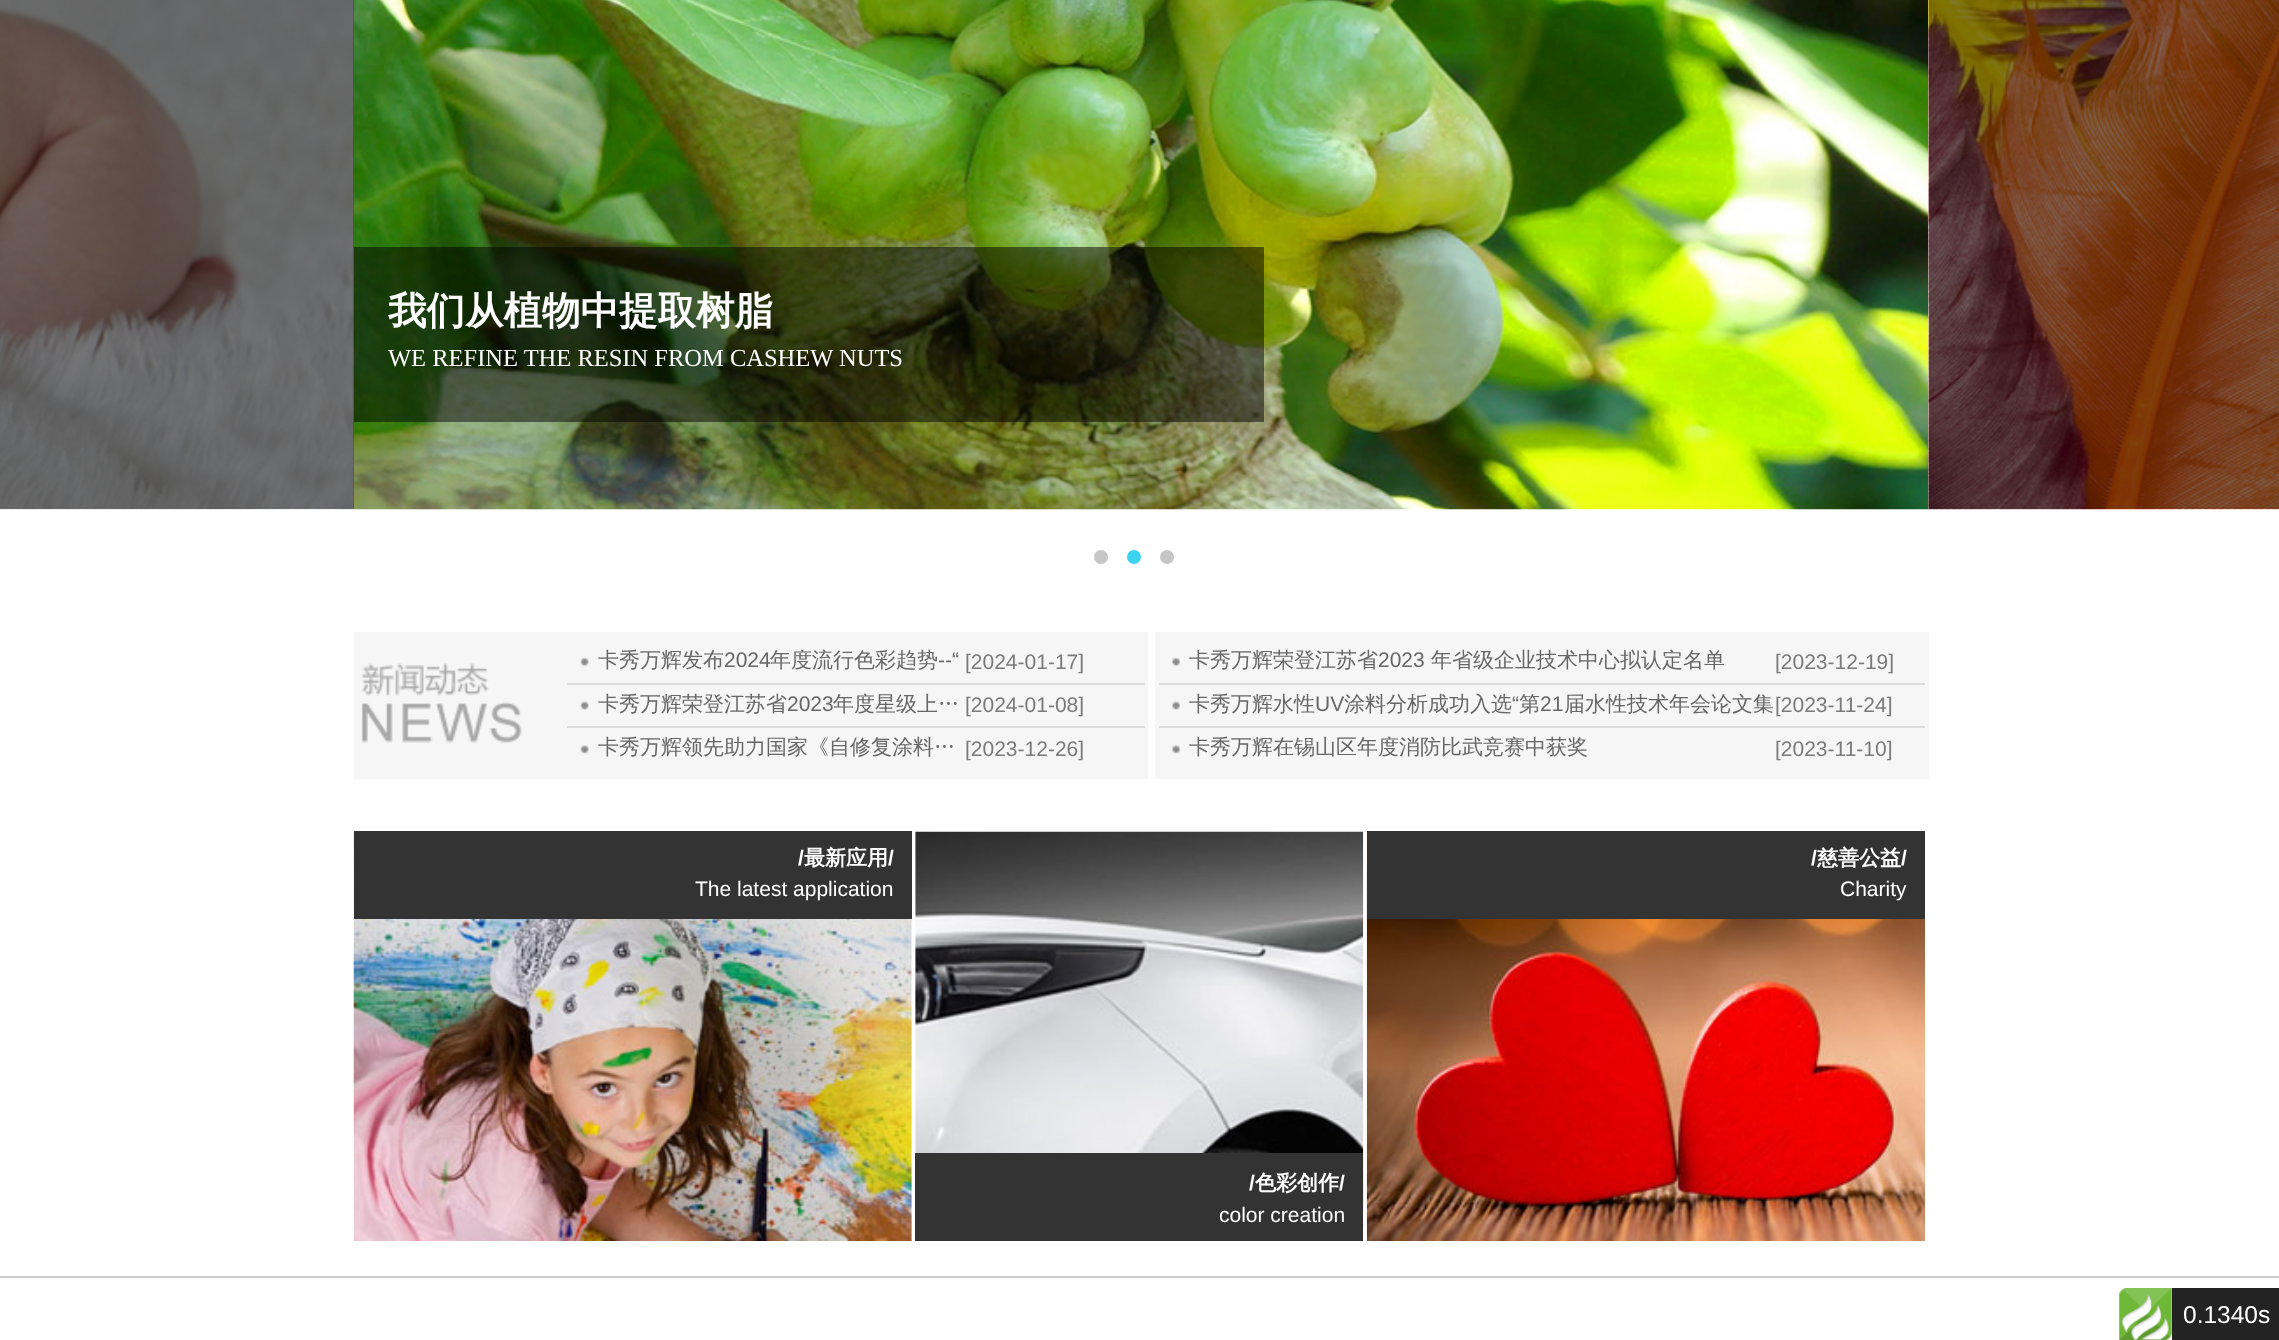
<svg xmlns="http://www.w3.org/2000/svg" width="2279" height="1340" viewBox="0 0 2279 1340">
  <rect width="100%" height="100%" fill="rgb(255,255,255)"/>
  <image x="0" y="0" width="354" height="510" href="pic1.png"/>
  <image x="353" y="0" width="1576" height="510" href="pic2.png"/>
  <rect x="0" y="0" width="354" height="509" fill="rgba(0,0,0,0.5)"/>
  <rect x="354" y="247" width="910" height="175" fill="rgba(0,0,0,0.5)"/>
  <text x="388" y="324" font-family="WenQuanYi Zen Hei" font-size="38.5" font-weight="bold" fill="rgb(255,255,255)">我们从植物中提取树脂</text>
  <text x="388" y="366" font-family="Liberation Serif" font-size="24.5" fill="rgb(255,255,255)">WE REFINE THE RESIN FROM CASHEW NUTS</text>
  <image x="1928" y="0" width="351" height="510" href="pic3.png"/>
  <circle cx="1101" cy="557" r="7" fill="rgb(198,198,198)"/>
  <circle cx="1134" cy="557" r="7" fill="rgb(60,210,241)"/>
  <circle cx="1167" cy="557" r="7" fill="rgb(198,198,198)"/>
  <rect x="0" y="1276" width="2279" height="2" fill="rgb(204,204,204)"/>
  <rect x="354" y="632" width="794" height="147" fill="rgb(246,246,246)"/>
  <image x="361" y="663" width="161" height="80" href="pic4.png"/>
  <rect x="567" y="683" width="578" height="2" fill="rgb(220,220,220)"/>
  <image x="580" y="657" width="9" height="9" href="pic5.png"/>
  <text x="598" y="667" font-family="WenQuanYi Zen Hei" font-size="21" font-weight="500" fill="rgb(102,102,102)">卡秀万辉发布</text>
  <text x="724" y="667" font-family="Liberation Sans" font-size="21" fill="rgb(102,102,102)">2024</text>
  <text x="770" y="667" font-family="WenQuanYi Zen Hei" font-size="21" font-weight="500" fill="rgb(102,102,102)">年度流行色彩趋势</text>
  <text x="938" y="667" font-family="Liberation Sans" font-size="21" fill="rgb(102,102,102)">--“</text>
  <text x="965" y="669" font-family="Liberation Sans" font-size="21" fill="rgb(122,122,122)">[2024-01-17]</text>
  <rect x="567" y="726" width="578" height="2" fill="rgb(220,220,220)"/>
  <image x="580" y="701" width="9" height="9" href="pic6.png"/>
  <text x="598" y="711" font-family="WenQuanYi Zen Hei" font-size="21" font-weight="500" fill="rgb(102,102,102)">卡秀万辉荣登江苏省</text>
  <text x="787" y="711" font-family="Liberation Sans" font-size="21" fill="rgb(102,102,102)">2023</text>
  <text x="833" y="711" font-family="WenQuanYi Zen Hei" font-size="21" font-weight="500" fill="rgb(102,102,102)">年度星级上…</text>
  <text x="965" y="712" font-family="Liberation Sans" font-size="21" fill="rgb(122,122,122)">[2024-01-08]</text>
  <image x="580" y="745" width="9" height="9" href="pic7.png"/>
  <text x="598" y="754" font-family="WenQuanYi Zen Hei" font-size="21" font-weight="500" fill="rgb(102,102,102)">卡秀万辉领先助力国家《自修复涂料…</text>
  <text x="965" y="756" font-family="Liberation Sans" font-size="21" fill="rgb(122,122,122)">[2023-12-26]</text>
  <rect x="1155" y="632" width="774" height="147" fill="rgb(246,246,246)"/>
  <rect x="1159" y="683" width="766" height="2" fill="rgb(220,220,220)"/>
  <image x="1172" y="657" width="8" height="9" href="pic8.png"/>
  <text x="1189" y="667" font-family="WenQuanYi Zen Hei" font-size="21" font-weight="500" fill="rgb(102,102,102)">卡秀万辉荣登江苏省</text>
  <text x="1378" y="667" font-family="Liberation Sans" font-size="21" fill="rgb(102,102,102)">2023</text>
  <text x="1431" y="667" font-family="WenQuanYi Zen Hei" font-size="21" font-weight="500" fill="rgb(102,102,102)">年省级企业技术中心拟认定名单</text>
  <text x="1775" y="669" font-family="Liberation Sans" font-size="21" fill="rgb(122,122,122)">[2023-12-19]</text>
  <rect x="1159" y="726" width="766" height="2" fill="rgb(220,220,220)"/>
  <image x="1172" y="701" width="8" height="9" href="pic9.png"/>
  <text x="1189" y="711" font-family="WenQuanYi Zen Hei" font-size="21" font-weight="500" fill="rgb(102,102,102)">卡秀万辉水性</text>
  <text x="1315" y="711" font-family="Liberation Sans" font-size="21" fill="rgb(102,102,102)">UV</text>
  <text x="1344" y="711" font-family="WenQuanYi Zen Hei" font-size="21" font-weight="500" fill="rgb(102,102,102)">涂料分析成功入选</text>
  <text x="1512" y="711" font-family="Liberation Sans" font-size="21" fill="rgb(102,102,102)">“</text>
  <text x="1519" y="711" font-family="WenQuanYi Zen Hei" font-size="21" font-weight="500" fill="rgb(102,102,102)">第</text>
  <text x="1540" y="711" font-family="Liberation Sans" font-size="21" fill="rgb(102,102,102)">21</text>
  <text x="1564" y="711" font-family="WenQuanYi Zen Hei" font-size="21" font-weight="500" fill="rgb(102,102,102)">届水性技术年会论文集</text>
  <text x="1775" y="712" font-family="Liberation Sans" font-size="21" fill="rgb(122,122,122)">[2023-11-24]</text>
  <image x="1172" y="745" width="8" height="9" href="pic10.png"/>
  <text x="1189" y="754" font-family="WenQuanYi Zen Hei" font-size="21" font-weight="500" fill="rgb(102,102,102)">卡秀万辉在锡山区年度消防比武竞赛中获奖</text>
  <text x="1775" y="756" font-family="Liberation Sans" font-size="21" fill="rgb(122,122,122)">[2023-11-10]</text>
  <image x="353" y="831" width="559" height="410" href="pic11.png"/>
  <rect x="354" y="831" width="558" height="88" fill="rgb(51,51,51)"/>
  <text x="798" y="865" font-family="Liberation Sans" font-size="21" font-weight="bold" fill="rgb(255,255,255)">/</text>
  <text x="804" y="865" font-family="WenQuanYi Zen Hei" font-size="21" font-weight="bold" fill="rgb(255,255,255)">最新应用</text>
  <text x="888" y="865" font-family="Liberation Sans" font-size="21" font-weight="bold" fill="rgb(255,255,255)">/</text>
  <text x="695" y="896" font-family="Liberation Sans" font-size="21" fill="rgb(255,255,255)">The latest application</text>
  <image x="1366" y="832" width="559" height="409" href="pic12.png"/>
  <rect x="1367" y="831" width="558" height="88" fill="rgb(51,51,51)"/>
  <text x="1811" y="865" font-family="Liberation Sans" font-size="21" font-weight="bold" fill="rgb(255,255,255)">/</text>
  <text x="1817" y="865" font-family="WenQuanYi Zen Hei" font-size="21" font-weight="bold" fill="rgb(255,255,255)">慈善公益</text>
  <text x="1901" y="865" font-family="Liberation Sans" font-size="21" font-weight="bold" fill="rgb(255,255,255)">/</text>
  <text x="1840" y="896" font-family="Liberation Sans" font-size="21" fill="rgb(255,255,255)">Charity</text>
  <image x="915" y="831" width="449" height="410" href="pic13.png"/>
  <rect x="915" y="1153" width="448" height="88" fill="rgb(51,51,51)"/>
  <text x="1249" y="1190" font-family="Liberation Sans" font-size="21" font-weight="bold" fill="rgb(255,255,255)">/</text>
  <text x="1255" y="1190" font-family="WenQuanYi Zen Hei" font-size="21" font-weight="bold" fill="rgb(255,255,255)">色彩创作</text>
  <text x="1339" y="1190" font-family="Liberation Sans" font-size="21" font-weight="bold" fill="rgb(255,255,255)">/</text>
  <text x="1219" y="1222" font-family="Liberation Sans" font-size="21" fill="rgb(255,255,255)">color creation</text>
  <image x="2119" y="1288" width="53" height="52" href="pic14.png"/>
  <rect x="2172" y="1288" width="107" height="52" fill="rgb(35,35,35)"/>
  <text x="2183" y="1323" font-family="Liberation Sans" font-size="24.5" fill="rgb(255,255,255)">0.1340s</text>
</svg>
